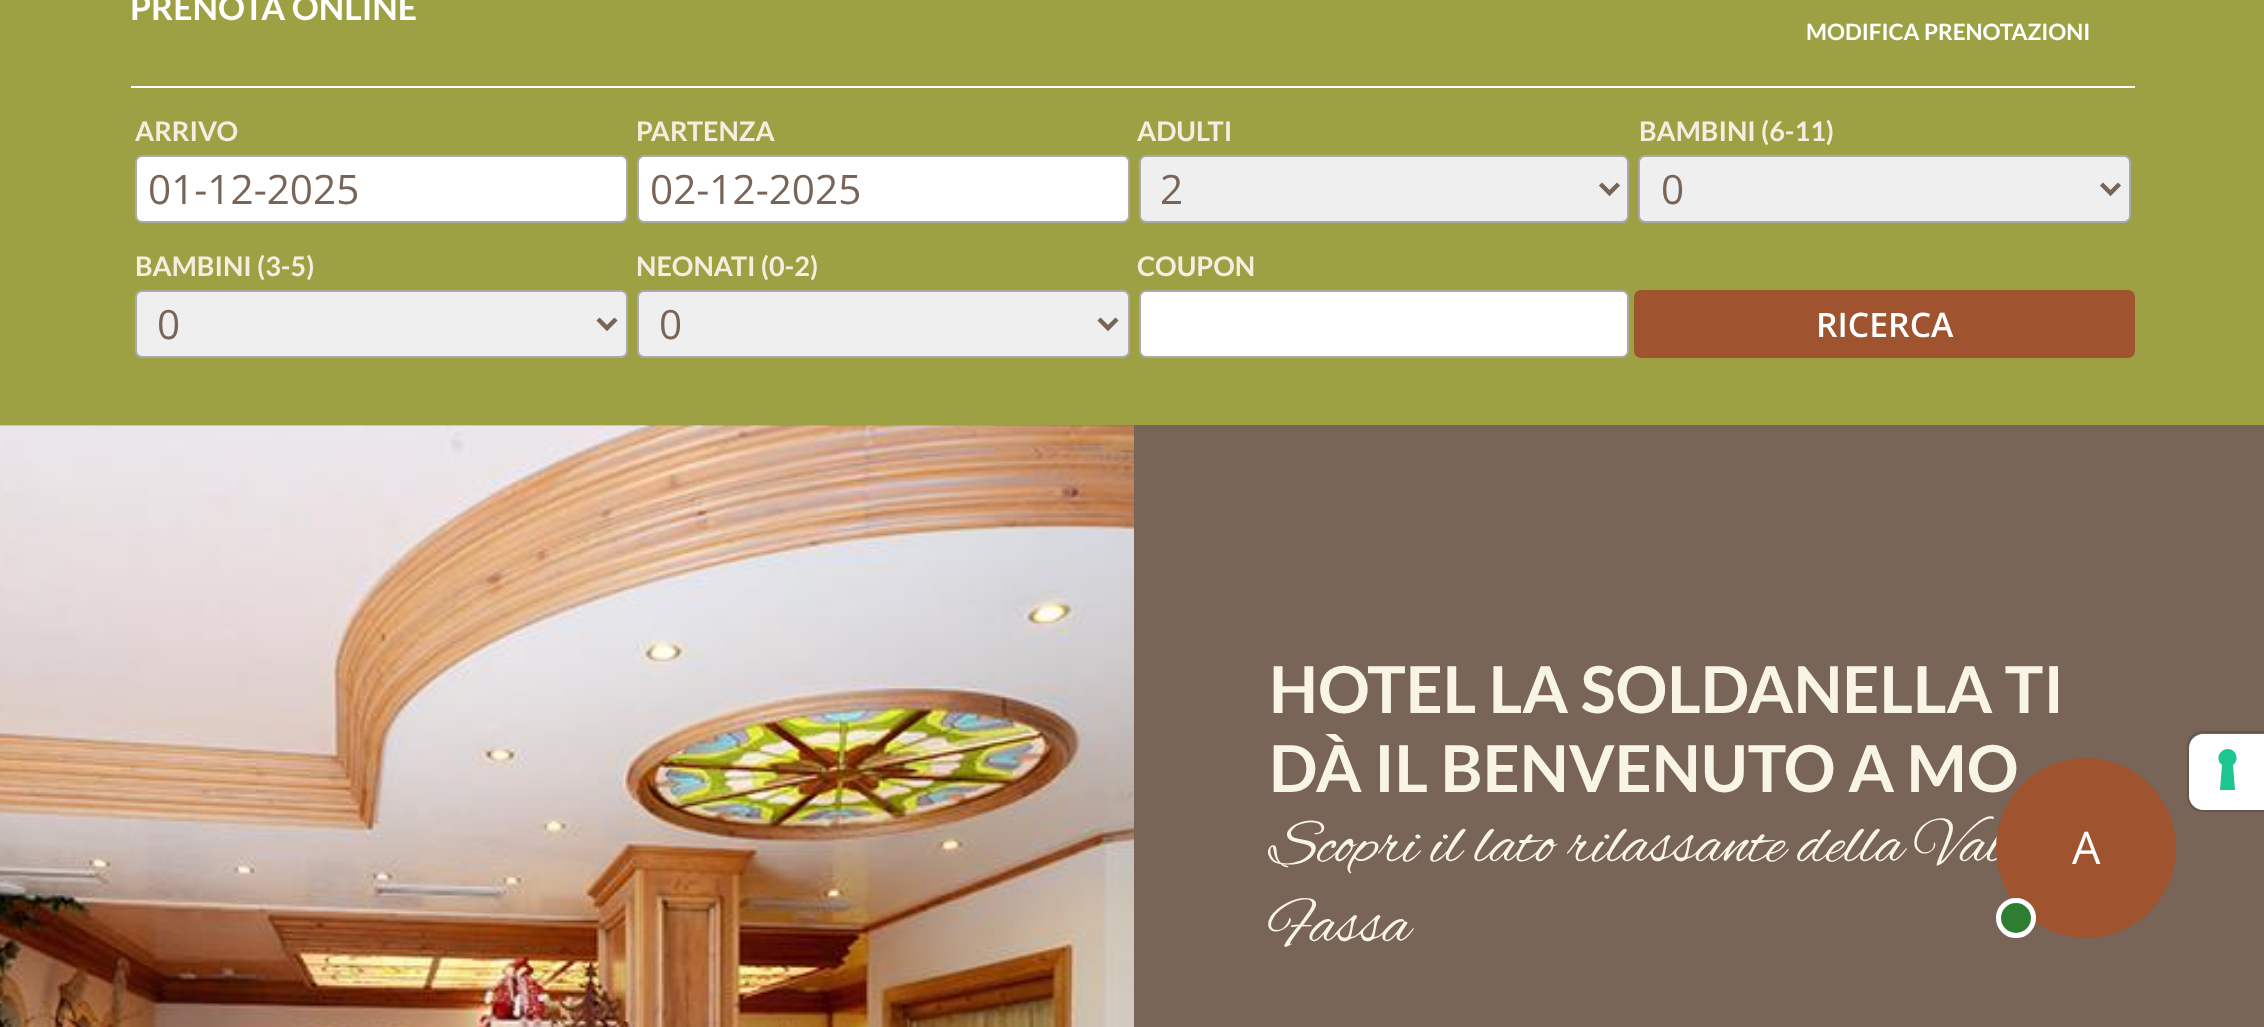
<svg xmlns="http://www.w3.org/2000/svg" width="2264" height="1027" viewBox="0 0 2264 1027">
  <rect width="100%" height="100%" fill="rgb(158,161,67)"/>
  <rect x="131" y="86" width="2004" height="2" fill="rgb(255,255,255)"/>
  <text x="130" y="20" font-family="Lato" font-size="33.75" font-weight="bold" fill="rgb(255,255,255)">PRENOTA ONLINE</text>
  <text x="1806" y="40" font-family="Lato" font-size="22.5" font-weight="bold" fill="rgb(255,255,255)">MODIFICA PRENOTAZIONI</text>
  <text x="135" y="141" font-family="Lato" font-size="27" font-weight="bold" fill="rgb(245,237,224)">ARRIVO</text>
  <rect x="136" y="156" width="491" height="66" rx="6" fill="rgb(255,255,255)" stroke="rgb(170,170,170)" stroke-width="2"/>
  <text x="148" y="204" font-family="Open Sans" font-size="40.5" fill="rgb(120,101,88)">01-12-2025</text>
  <text x="636" y="141" font-family="Lato" font-size="27" font-weight="bold" fill="rgb(245,237,224)">PARTENZA</text>
  <rect x="638" y="156" width="491" height="66" rx="6" fill="rgb(255,255,255)" stroke="rgb(170,170,170)" stroke-width="2"/>
  <text x="650" y="204" font-family="Open Sans" font-size="40.5" fill="rgb(120,101,88)">02-12-2025</text>
  <text x="1137" y="141" font-family="Lato" font-size="27" font-weight="bold" fill="rgb(245,237,224)">ADULTI</text>
  <rect x="1140" y="156" width="488" height="66" rx="6" fill="rgb(239,239,239)" stroke="rgb(170,170,170)" stroke-width="2"/>
  <path d="M1600.5 184L1609.5 193L1618.5 184" fill="none" stroke="rgb(120,101,88)" stroke-width="4.5"/>
  <text x="1160" y="204" font-family="Open Sans" font-size="40.5" fill="rgb(120,101,88)">2</text>
  <text x="1639" y="141" font-family="Lato" font-size="27" font-weight="bold" fill="rgb(245,237,224)">BAMBINI (6-11)</text>
  <rect x="1639" y="156" width="491" height="66" rx="6" fill="rgb(239,239,239)" stroke="rgb(170,170,170)" stroke-width="2"/>
  <path d="M2101.5 184L2110.5 193L2119.5 184" fill="none" stroke="rgb(120,101,88)" stroke-width="4.5"/>
  <text x="1661" y="204" font-family="Open Sans" font-size="40.5" fill="rgb(120,101,88)">0</text>
  <text x="135" y="276" font-family="Lato" font-size="27" font-weight="bold" fill="rgb(245,237,224)">BAMBINI (3-5)</text>
  <rect x="136" y="291" width="491" height="66" rx="6" fill="rgb(239,239,239)" stroke="rgb(170,170,170)" stroke-width="2"/>
  <path d="M598 319L607 328L616 319" fill="none" stroke="rgb(120,101,88)" stroke-width="4.5"/>
  <text x="157" y="339" font-family="Open Sans" font-size="40.5" fill="rgb(120,101,88)">0</text>
  <text x="636" y="276" font-family="Lato" font-size="27" font-weight="bold" fill="rgb(245,237,224)">NEONATI (0-2)</text>
  <rect x="638" y="291" width="491" height="66" rx="6" fill="rgb(239,239,239)" stroke="rgb(170,170,170)" stroke-width="2"/>
  <path d="M1099 319L1108 328L1117 319" fill="none" stroke="rgb(120,101,88)" stroke-width="4.5"/>
  <text x="659" y="339" font-family="Open Sans" font-size="40.5" fill="rgb(120,101,88)">0</text>
  <text x="1137" y="276" font-family="Lato" font-size="27" font-weight="bold" fill="rgb(245,237,224)">COUPON</text>
  <rect x="1140" y="291" width="488" height="66" rx="6" fill="rgb(255,255,255)" stroke="rgb(170,170,170)" stroke-width="2"/>
  <rect x="1634" y="290" width="501" height="68" rx="7" fill="rgb(159,83,46)"/>
  <text x="1816" y="337" font-family="Open Sans" font-size="33.75" font-weight="600" fill="rgb(255,255,255)">RICERCA</text>
  <rect x="0" y="425" width="2264" height="602" fill="rgb(120,101,88)"/>
  <image x="0" y="425" width="1134" height="602" href="pic1.png"/>
  <g font-family="Lato" font-size="64.75" font-weight="bold" fill="rgb(248,244,230)">
    <text>
      <tspan x="1269" y="713">HOTEL LA SOLDANELLA TI</tspan>
      <tspan x="1269" y="792">DÀ IL BENVENUTO A MO</tspan>
    </text>
  </g>
  <g font-family="Alex Brush" font-size="64.75" fill="rgb(248,244,230)">
    <text>
      <tspan x="1269" y="861">Scopri il lato rilassante della Val</tspan>
      <tspan x="1269" y="941">Fassa</tspan>
    </text>
  </g>
  <path d="M2203 732H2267V811H2203C2194.5 811 2188 804.5 2188 796V747C2188 738.5 2194.5 732 2203 732Z" fill="none" stroke="rgb(102,86,75)" stroke-width="2"/>
  <path d="M2203 734H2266V810H2203C2195.5 810 2189 803.5 2189 796V748C2189 740.5 2195.5 734 2203 734Z" fill="rgb(255,255,255)"/>
  <path d="M2228 749C2236 749 2240 760 2233 765L2235 790H2220L2222 765C2215 760 2219 749 2228 749Z" fill="rgb(28,198,145)" fill-rule="evenodd"/>
  <circle cx="2086" cy="848" r="90" fill="rgb(159,83,46)"/>
  <text x="2072" y="864" font-family="Open Sans" font-size="45" fill="rgb(255,255,255)">A</text>
  <circle cx="2016" cy="918" r="17.5" fill="rgb(46,125,50)" stroke="rgb(255,255,255)" stroke-width="5"/>
</svg>
